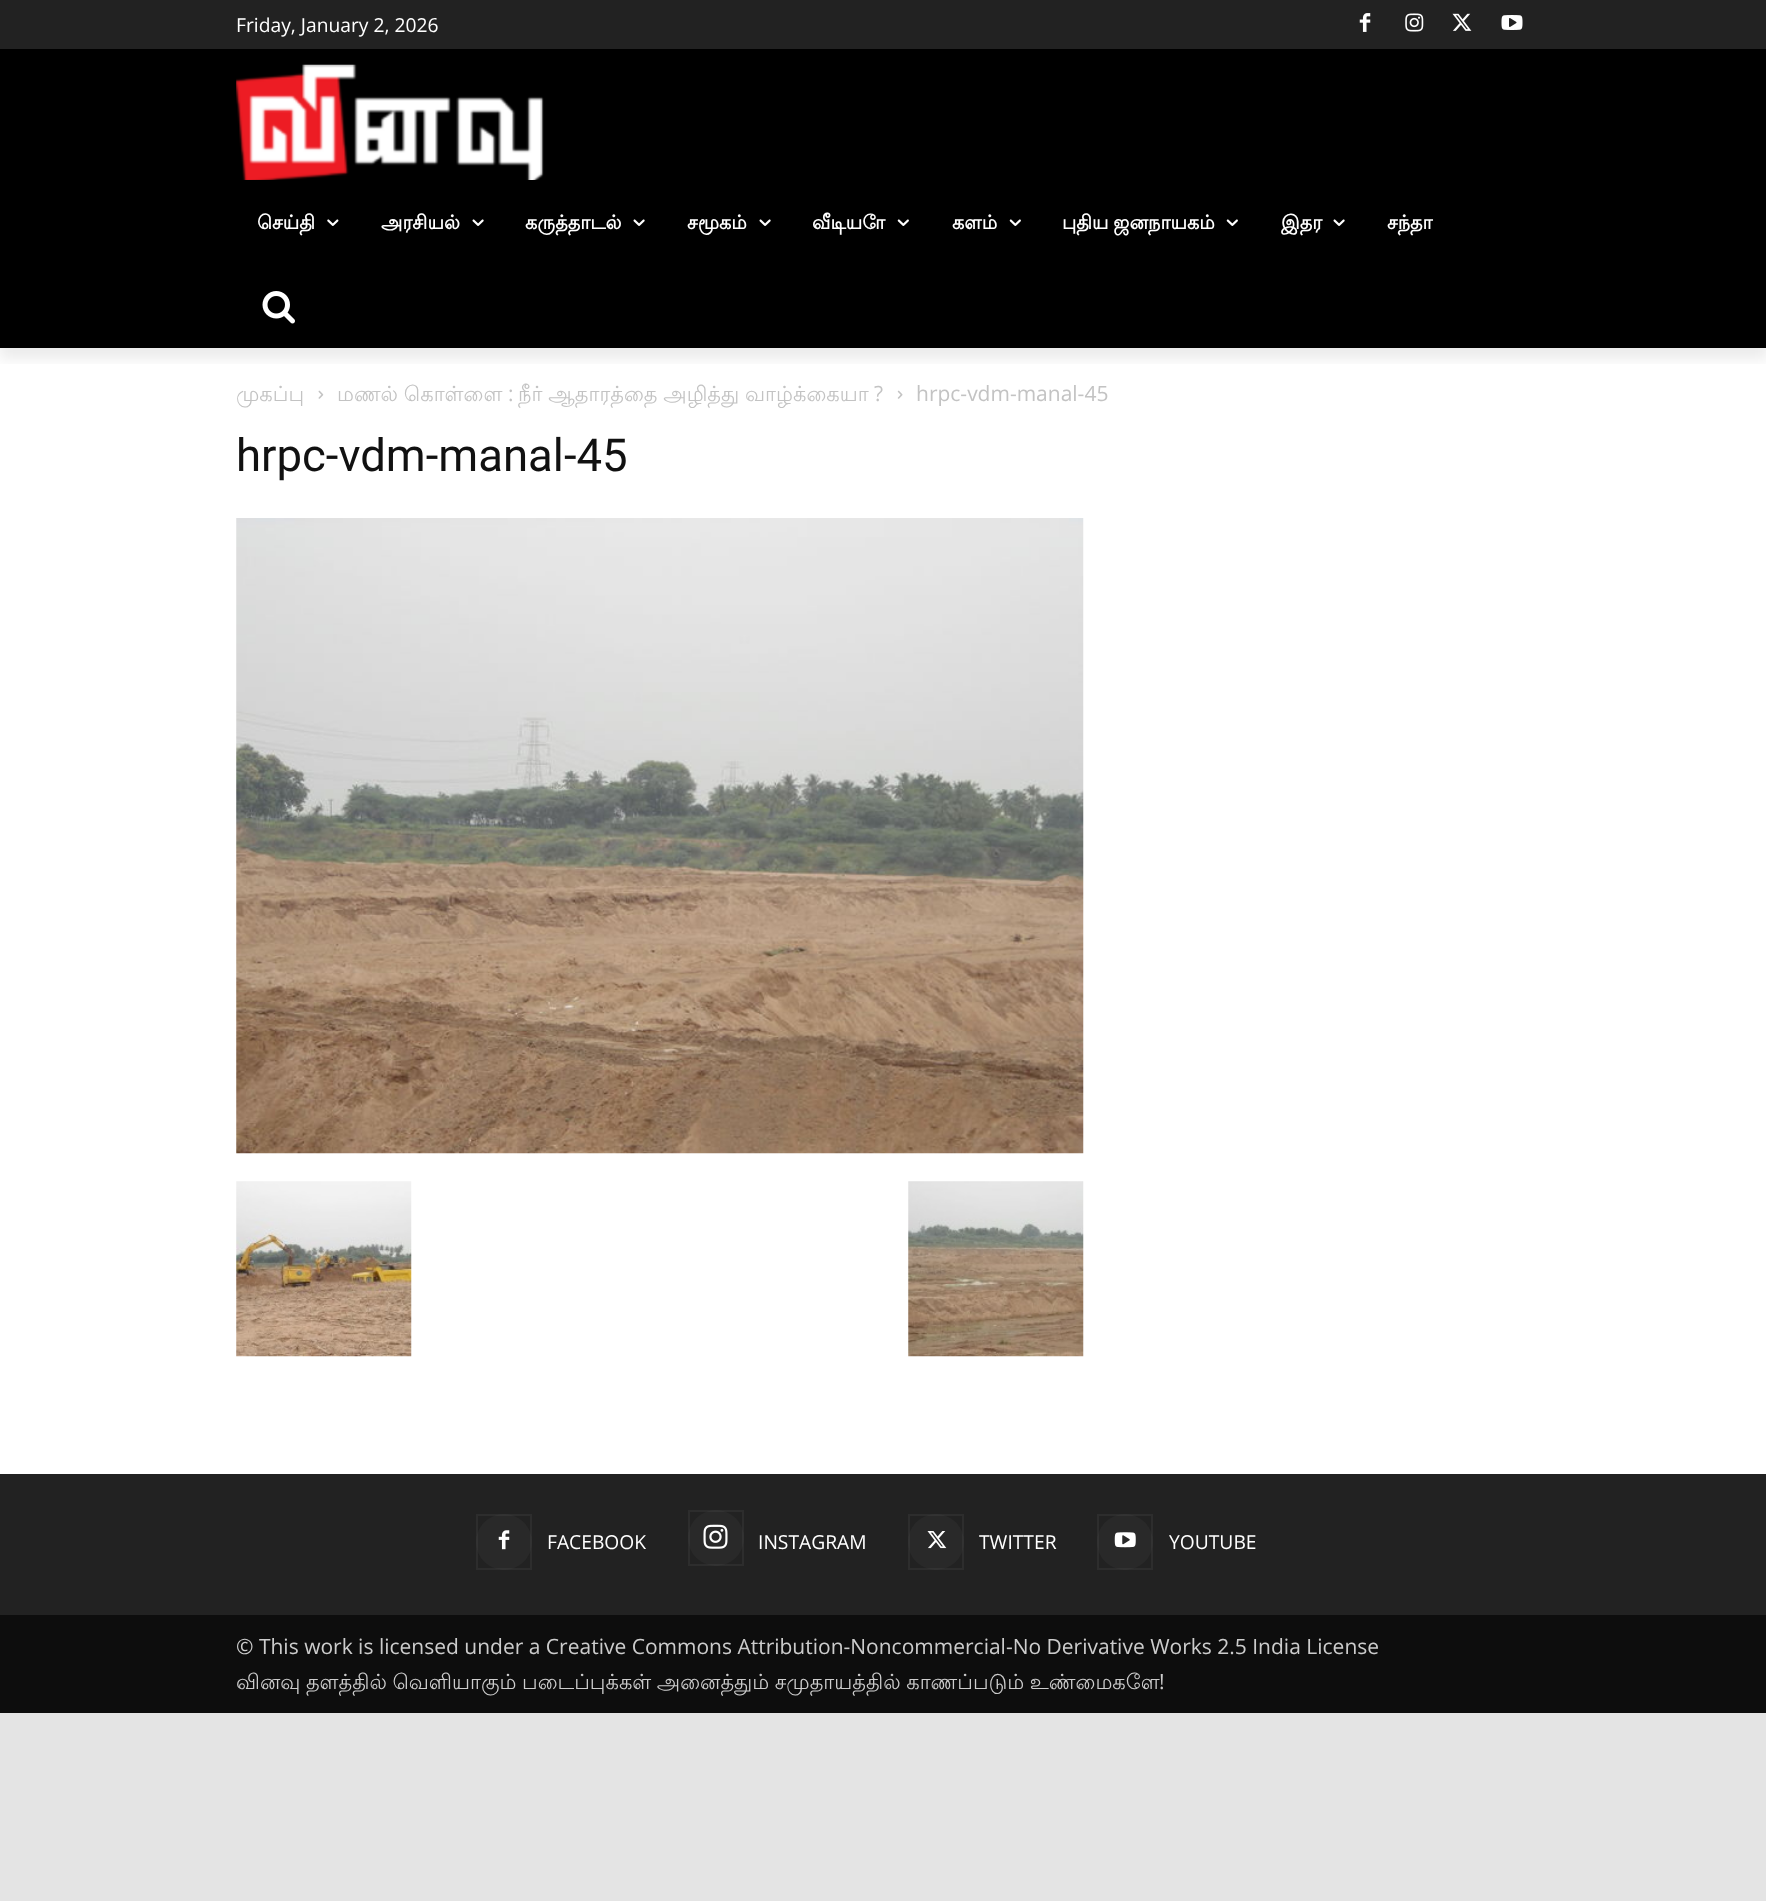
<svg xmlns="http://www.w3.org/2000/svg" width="1766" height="1901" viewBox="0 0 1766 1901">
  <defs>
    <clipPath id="clip1"><rect x="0" y="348" width="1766" height="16"/></clipPath>
  </defs>
  <rect width="100%" height="100%" fill="rgb(228,228,228)"/>
  <rect x="0" y="0" width="1766" height="49" fill="rgb(34,34,34)"/>
  <image x="1359" y="13" width="12" height="19" href="pic1.png"/>
  <image x="1405" y="13" width="19" height="19" href="pic2.png"/>
  <image x="1452" y="13" width="20" height="18" href="pic3.png"/>
  <image x="1501" y="15" width="22" height="15" href="pic4.png"/>
  <rect x="0" y="49" width="1766" height="299" fill="rgb(0,0,0)"/>
  <image x="236" y="64" width="308" height="116" href="pic5.png"/>
  <rect x="0" y="348" width="1766" height="1126" fill="rgb(255,255,255)"/>
  <g clip-path="url(#clip1)">
    <rect x="0" y="11" width="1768" height="348" fill="rgba(0,0,0,0.08)" filter="blur(7px)"/>
  </g>
  <text x="236" y="32" font-family="Open Sans" font-size="19.25" fill="rgb(255,255,255)">Friday, January 2, 2026</text>
  <text x="257" y="229" font-family="Lohit Tamil" font-size="19.25" font-weight="bold" fill="rgb(255,255,255)">செய்தி</text>
  <image x="327" y="219" width="12" height="7" href="pic6.png"/>
  <text x="381" y="229" font-family="Lohit Tamil" font-size="19.25" font-weight="bold" fill="rgb(255,255,255)">அரசியல்</text>
  <image x="472" y="219" width="12" height="7" href="pic7.png"/>
  <text x="525" y="229" font-family="Lohit Tamil" font-size="19.25" font-weight="bold" fill="rgb(255,255,255)">கருத்தாடல்</text>
  <image x="633" y="219" width="12" height="7" href="pic7.png"/>
  <text x="687" y="229" font-family="Lohit Tamil" font-size="19.25" font-weight="bold" fill="rgb(255,255,255)">சமூகம்</text>
  <image x="759" y="219" width="12" height="7" href="pic7.png"/>
  <text x="812" y="229" font-family="Lohit Tamil" font-size="19.25" font-weight="bold" fill="rgb(255,255,255)">வீடியோ</text>
  <image x="897" y="219" width="12" height="7" href="pic8.png"/>
  <text x="952" y="229" font-family="Lohit Tamil" font-size="19.25" font-weight="bold" fill="rgb(255,255,255)">களம்</text>
  <image x="1009" y="219" width="12" height="7" href="pic8.png"/>
  <text x="1062" y="229" word-spacing="-1" font-family="Lohit Tamil" font-size="19.25" font-weight="bold" fill="rgb(255,255,255)">புதிய ஜனநாயகம்</text>
  <image x="1226" y="219" width="12" height="7" href="pic8.png"/>
  <text x="1281" y="229" font-family="Lohit Tamil" font-size="19.25" font-weight="bold" fill="rgb(255,255,255)">இதர</text>
  <image x="1333" y="219" width="12" height="7" href="pic7.png"/>
  <text x="1387" y="229" font-family="Lohit Tamil" font-size="19.25" font-weight="bold" fill="rgb(255,255,255)">சந்தா</text>
  <image x="262" y="291" width="33" height="33" href="pic9.png"/>
  <text x="236" y="401" font-family="Lohit Tamil" font-size="21" fill="rgb(195,195,195)">முகப்பு</text>
  <image x="318" y="390" width="6" height="9" href="pic10.png"/>
  <text x="337" y="401" word-spacing="-0.5" font-family="Lohit Tamil" font-size="21" fill="rgb(195,195,195)">மணல் கொள்ளை</text>
  <text x="508" y="401" font-family="Open Sans" font-size="21" fill="rgb(195,195,195)">:</text>
  <text x="518" y="401" word-spacing="-0.5" font-family="Lohit Tamil" font-size="21" fill="rgb(195,195,195)">நீர் ஆதாரத்தை அழித்து வாழ்க்கையா</text>
  <text x="874" y="401" font-family="Open Sans" font-size="21" fill="rgb(195,195,195)">?</text>
  <image x="897" y="390" width="6" height="9" href="pic11.png"/>
  <text x="916" y="401" font-family="Open Sans" font-size="21" fill="rgb(195,195,195)">hrpc-vdm-manal-45</text>
  <text x="236" y="471" font-family="Roboto" font-size="45.5" fill="rgb(17,17,17)">hrpc-vdm-manal-45</text>
  <image x="236" y="518" width="848" height="636" href="pic12.png"/>
  <image x="236" y="1181" width="176" height="176" href="pic13.png"/>
  <image x="908" y="1181" width="176" height="176" href="pic14.png"/>
  <rect x="0" y="1474" width="1766" height="141" fill="rgb(34,34,34)"/>
  <circle cx="504" cy="1542" r="28" fill="rgb(41,41,41)"/>
  <image x="498" y="1530" width="12" height="20" href="pic15.png"/>
  <rect x="477" y="1515" width="54" height="54" fill="none" stroke="rgba(255,255,255,0.05)" stroke-width="2"/>
  <text x="547" y="1549" font-family="Open Sans" font-size="19.25" fill="rgb(255,255,255)">FACEBOOK</text>
  <circle cx="716" cy="1538" r="28" fill="rgb(41,41,41)"/>
  <image x="703" y="1524" width="25" height="25" href="pic16.png"/>
  <rect x="689" y="1511" width="54" height="54" fill="none" stroke="rgba(255,255,255,0.05)" stroke-width="2"/>
  <text x="758" y="1549" font-family="Open Sans" font-size="19.25" fill="rgb(255,255,255)">INSTAGRAM</text>
  <circle cx="936" cy="1542" r="28" fill="rgb(41,41,41)"/>
  <image x="927" y="1531" width="20" height="18" href="pic17.png"/>
  <rect x="909" y="1515" width="54" height="54" fill="none" stroke="rgba(255,255,255,0.05)" stroke-width="2"/>
  <text x="979" y="1549" font-family="Open Sans" font-size="19.25" fill="rgb(255,255,255)">TWITTER</text>
  <circle cx="1125" cy="1542" r="28" fill="rgb(41,41,41)"/>
  <image x="1114" y="1532" width="22" height="16" href="pic18.png"/>
  <rect x="1098" y="1515" width="54" height="54" fill="none" stroke="rgba(255,255,255,0.05)" stroke-width="2"/>
  <text x="1169" y="1549" font-family="Open Sans" font-size="19.25" fill="rgb(255,255,255)">YOUTUBE</text>
  <rect x="0" y="1615" width="1766" height="98" fill="rgb(13,13,13)"/>
  <text x="236" y="1654" font-family="Open Sans" font-size="21" fill="rgb(204,204,204)">© This work is licensed under a Creative Commons Attribution-Noncommercial-No Derivative Works 2.5 India License</text>
  <text x="236" y="1689" word-spacing="-0.75" font-family="Lohit Tamil" font-size="21" fill="rgb(204,204,204)">வினவு தளத்தில் வெளியாகும் படைப்புக்கள் அனைத்தும் சமுதாயத்தில் காணப்படும் உண்மைகளே</text>
  <text x="1159" y="1689" font-family="Open Sans" font-size="21" fill="rgb(204,204,204)">!</text>
</svg>
